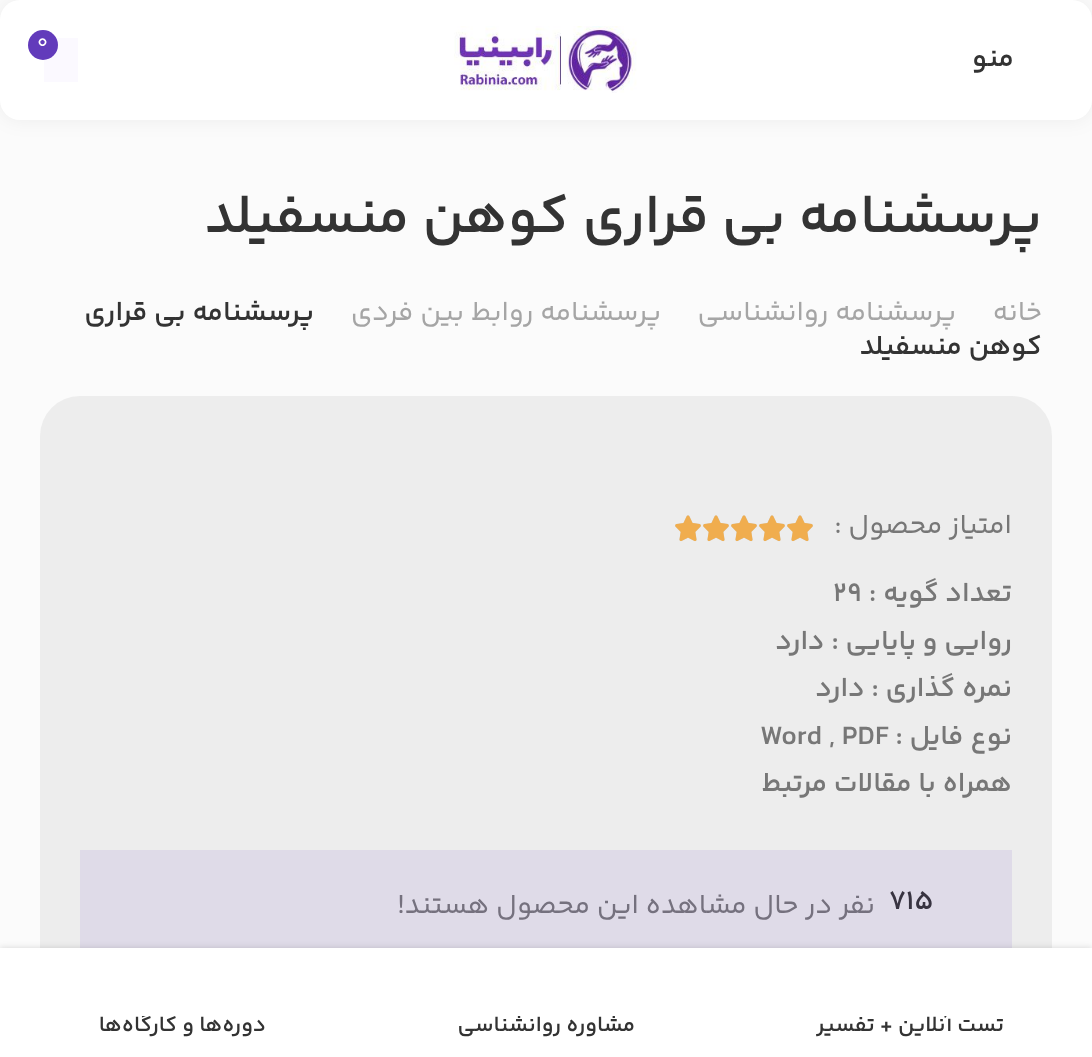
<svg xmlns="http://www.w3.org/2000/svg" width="1092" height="1057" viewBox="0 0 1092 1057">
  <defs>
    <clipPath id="clip1"><rect x="748" y="1016" width="324" height="22"/></clipPath>
    <clipPath id="clip2"><rect x="384" y="1016" width="324" height="22"/></clipPath>
    <clipPath id="clip3"><rect x="20" y="1016" width="324" height="22"/></clipPath>
  </defs>
  <rect width="100%" height="100%" fill="rgb(251,251,251)"/>
  <rect x="0" y="0" width="1092" height="120" rx="20" fill="rgba(0,0,0,0.06)" filter="blur(10px)"/>
  <rect x="0" y="0" width="1092" height="120" rx="20" fill="rgb(255,255,255)"/>
  <image x="454" y="26" width="183" height="67" href="pic1.png"/>
  <rect x="44" y="38" width="34" height="44" fill="rgb(251,249,255)"/>
  <circle cx="43" cy="45" r="15" fill="rgb(98,59,187)"/>
  <text x="37" y="48" font-family="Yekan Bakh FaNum" font-size="20" fill="rgb(255,255,255)">0</text>
  <text x="1014" y="66" font-family="Yekan Bakh FaNum" font-size="28" font-weight="600" direction="rtl" fill="rgb(51,51,51)">منو</text>
  <text x="1042" y="232" font-family="Yekan Bakh FaNum" font-size="56" font-weight="600" direction="rtl" fill="rgb(51,51,51)">پرسشنامه بی قراری کوهن منسفیلد</text>
  <g font-family="Yekan Bakh FaNum" font-size="28" direction="rtl" fill="rgb(165,165,165)">
    <text x="1042" y="320">خانه</text>
    <text x="956" y="320">پرسشنامه روانشناسی</text>
    <text x="661" y="320">پرسشنامه روابط بین فردی</text>
  </g>
  <g font-family="Yekan Bakh FaNum" font-size="28" font-weight="600" direction="rtl" fill="rgb(51,51,51)">
    <text x="314" y="320">پرسشنامه بی قراری</text>
    <text x="1042" y="354">کوهن منسفیلد</text>
  </g>
  <rect x="40" y="396" width="1012" height="608" rx="40" fill="rgb(237,237,237)"/>
  <rect x="80" y="850" width="932" height="98" fill="rgb(223,219,232)"/>
  <text x="1012" y="533" font-family="Yekan Bakh FaNum" font-size="28" direction="rtl" fill="rgb(119,119,119)">امتیاز محصول :</text>
  <image x="787" y="515" width="26" height="26" href="pic2.png"/>
  <image x="787" y="515" width="26" height="27" href="pic3.png"/>
  <image x="759" y="515" width="26" height="26" href="pic2.png"/>
  <image x="759" y="515" width="26" height="27" href="pic3.png"/>
  <image x="731" y="515" width="26" height="26" href="pic2.png"/>
  <image x="731" y="515" width="26" height="27" href="pic3.png"/>
  <image x="703" y="515" width="26" height="26" href="pic2.png"/>
  <image x="703" y="515" width="26" height="27" href="pic3.png"/>
  <image x="675" y="515" width="26" height="26" href="pic2.png"/>
  <image x="675" y="515" width="26" height="27" href="pic3.png"/>
  <text x="1012" y="601" font-family="Yekan Bakh FaNum" font-size="28" font-weight="600" direction="rtl" fill="rgb(119,119,119)">تعداد گویه :</text>
  <text x="833" y="601" font-family="Yekan Bakh FaNum" font-size="28" font-weight="600" fill="rgb(119,119,119)">29</text>
  <g font-family="Yekan Bakh FaNum" font-size="28" font-weight="600" direction="rtl" fill="rgb(119,119,119)">
    <text>
      <tspan x="1012" y="649">روایی و پایایی : دارد</tspan>
      <tspan x="1012" y="696">نمره گذاری : دارد</tspan>
      <tspan x="1012" y="744">نوع فایل :</tspan>
    </text>
  </g>
  <text x="760" y="744" font-family="Yekan Bakh FaNum" font-size="28" font-weight="600" fill="rgb(119,119,119)">Word , PDF</text>
  <text x="1012" y="791" font-family="Yekan Bakh FaNum" font-size="28" font-weight="600" direction="rtl" fill="rgb(119,119,119)">همراه با مقالات مرتبط</text>
  <text x="889" y="909" font-family="Yekan Bakh FaNum" font-size="28" font-weight="600" fill="rgb(56,52,65)">715</text>
  <text x="875" y="913" font-family="Yekan Bakh FaNum" font-size="28" direction="rtl" fill="rgb(117,113,126)">نفر در حال مشاهده این محصول هستند!</text>
  <rect x="0" y="948" width="1092" height="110" fill="rgba(0,0,0,0.15)" filter="blur(3px)"/>
  <rect x="0" y="948" width="1092" height="109" fill="rgb(255,255,255)"/>
  <g clip-path="url(#clip1)">
    <text x="1004" y="1031" font-family="Yekan Bakh FaNum" font-size="22" font-weight="600" direction="rtl" fill="rgb(51,51,51)">تست آنلاین + تفسیر</text>
  </g>
  <g clip-path="url(#clip2)">
    <text x="635" y="1031" font-family="Yekan Bakh FaNum" font-size="22" font-weight="600" direction="rtl" fill="rgb(51,51,51)">مشاوره روانشناسی</text>
  </g>
  <g clip-path="url(#clip3)">
    <text x="266" y="1031" font-family="Yekan Bakh FaNum" font-size="22" font-weight="600" direction="rtl" fill="rgb(51,51,51)">دوره‌ها و کارگاه‌ها</text>
  </g>
</svg>
